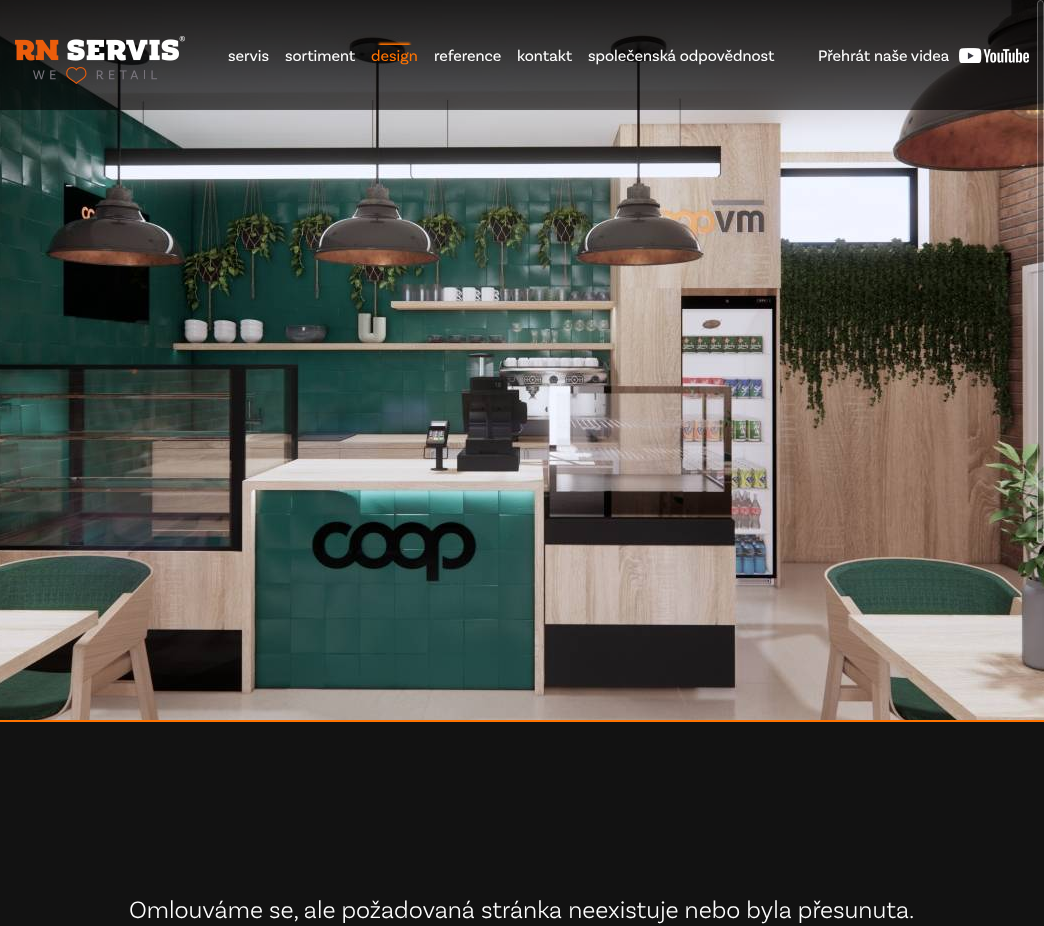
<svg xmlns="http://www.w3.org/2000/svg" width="1044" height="926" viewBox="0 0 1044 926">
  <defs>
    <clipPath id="clip1"><rect x="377" y="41" width="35" height="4"/></clipPath>
  </defs>
  <rect width="100%" height="100%" fill="rgb(18,18,18)"/>
  <rect x="0" y="720" width="1044" height="2" fill="rgb(255,115,0)"/>
  <image x="0" y="0" width="1044" height="720" href="pic1.png"/>
  <image x="15" y="36" width="170" height="48" href="pic2.png"/>
  <g font-family="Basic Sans" font-size="16" fill="rgb(255,255,255)">
    <text x="228" y="61">servis</text>
    <text x="285" y="61">sortiment</text>
  </g>
  <g clip-path="url(#clip1)">
    <rect x="379" y="43" width="31" height="6" fill="rgb(255,115,0)" filter="blur(1px)"/>
  </g>
  <text x="371" y="61" font-family="Basic Sans" font-size="16" fill="rgb(255,115,0)">design</text>
  <g font-family="Basic Sans" font-size="16" fill="rgb(255,255,255)">
    <text x="434" y="61">reference</text>
    <text x="517" y="61">kontakt</text>
    <text x="588" y="61">společenská odpovědnost</text>
  </g>
  <image x="959" y="48" width="70" height="15" href="pic3.png"/>
  <text x="818" y="61" font-family="Basic Sans" font-size="16" fill="rgb(255,255,255)">Přehrát naše videa</text>
  <rect x="1038" y="1" width="5" height="541" rx="2.5" fill="rgba(66,66,66,0.32)"/>
  <rect x="1037.5" y="0.5" width="6" height="542" rx="3" fill="none" stroke="rgba(255,255,255,0.32)"/>
  <text x="129" y="918" font-family="Basic Sans" font-size="25" font-weight="300" fill="rgb(255,255,255)">Omlouváme se, ale požadovaná stránka neexistuje nebo byla přesunuta.</text>
</svg>
